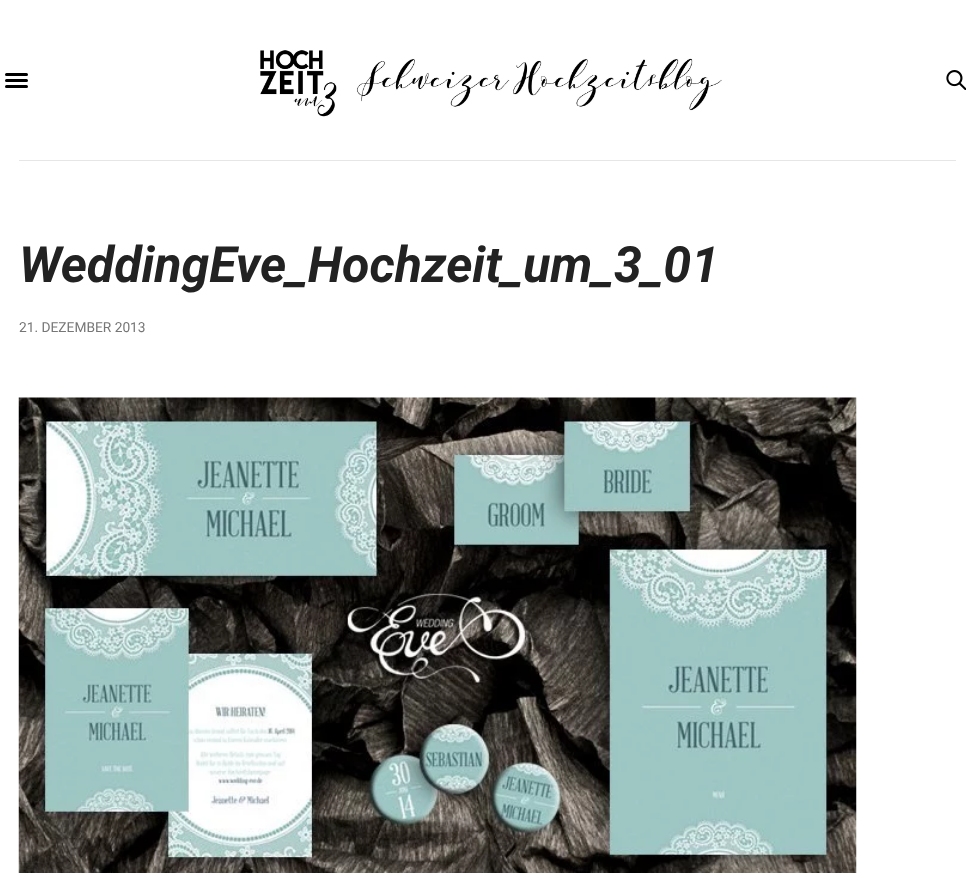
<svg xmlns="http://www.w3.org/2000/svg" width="974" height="873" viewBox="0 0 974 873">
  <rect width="100%" height="100%" fill="rgb(255,255,255)"/>
  <rect x="19" y="160" width="937" height="1" fill="rgb(230,230,230)"/>
  <rect x="5" y="73" width="23" height="3" rx="1.5" fill="rgb(0,0,0)"/>
  <rect x="5" y="79" width="23" height="3" rx="1.5" fill="rgb(0,0,0)"/>
  <rect x="5" y="85" width="23" height="3" rx="1.5" fill="rgb(0,0,0)"/>
  <image x="260" y="50" width="462" height="67" href="pic1.png"/>
  <image x="946" y="70" width="20" height="20" href="pic2.png"/>
  <text x="19" y="282" font-family="Roboto" font-size="50" font-weight="bold" font-style="italic" fill="rgb(34,34,34)">WeddingEve_Hochzeit_um_3_01</text>
  <text x="19" y="332" font-family="Roboto" font-size="13.75" fill="rgb(118,118,118)">21. DEZEMBER 2013</text>
  <image x="18" y="397" width="839" height="476" href="pic3.png"/>
</svg>
